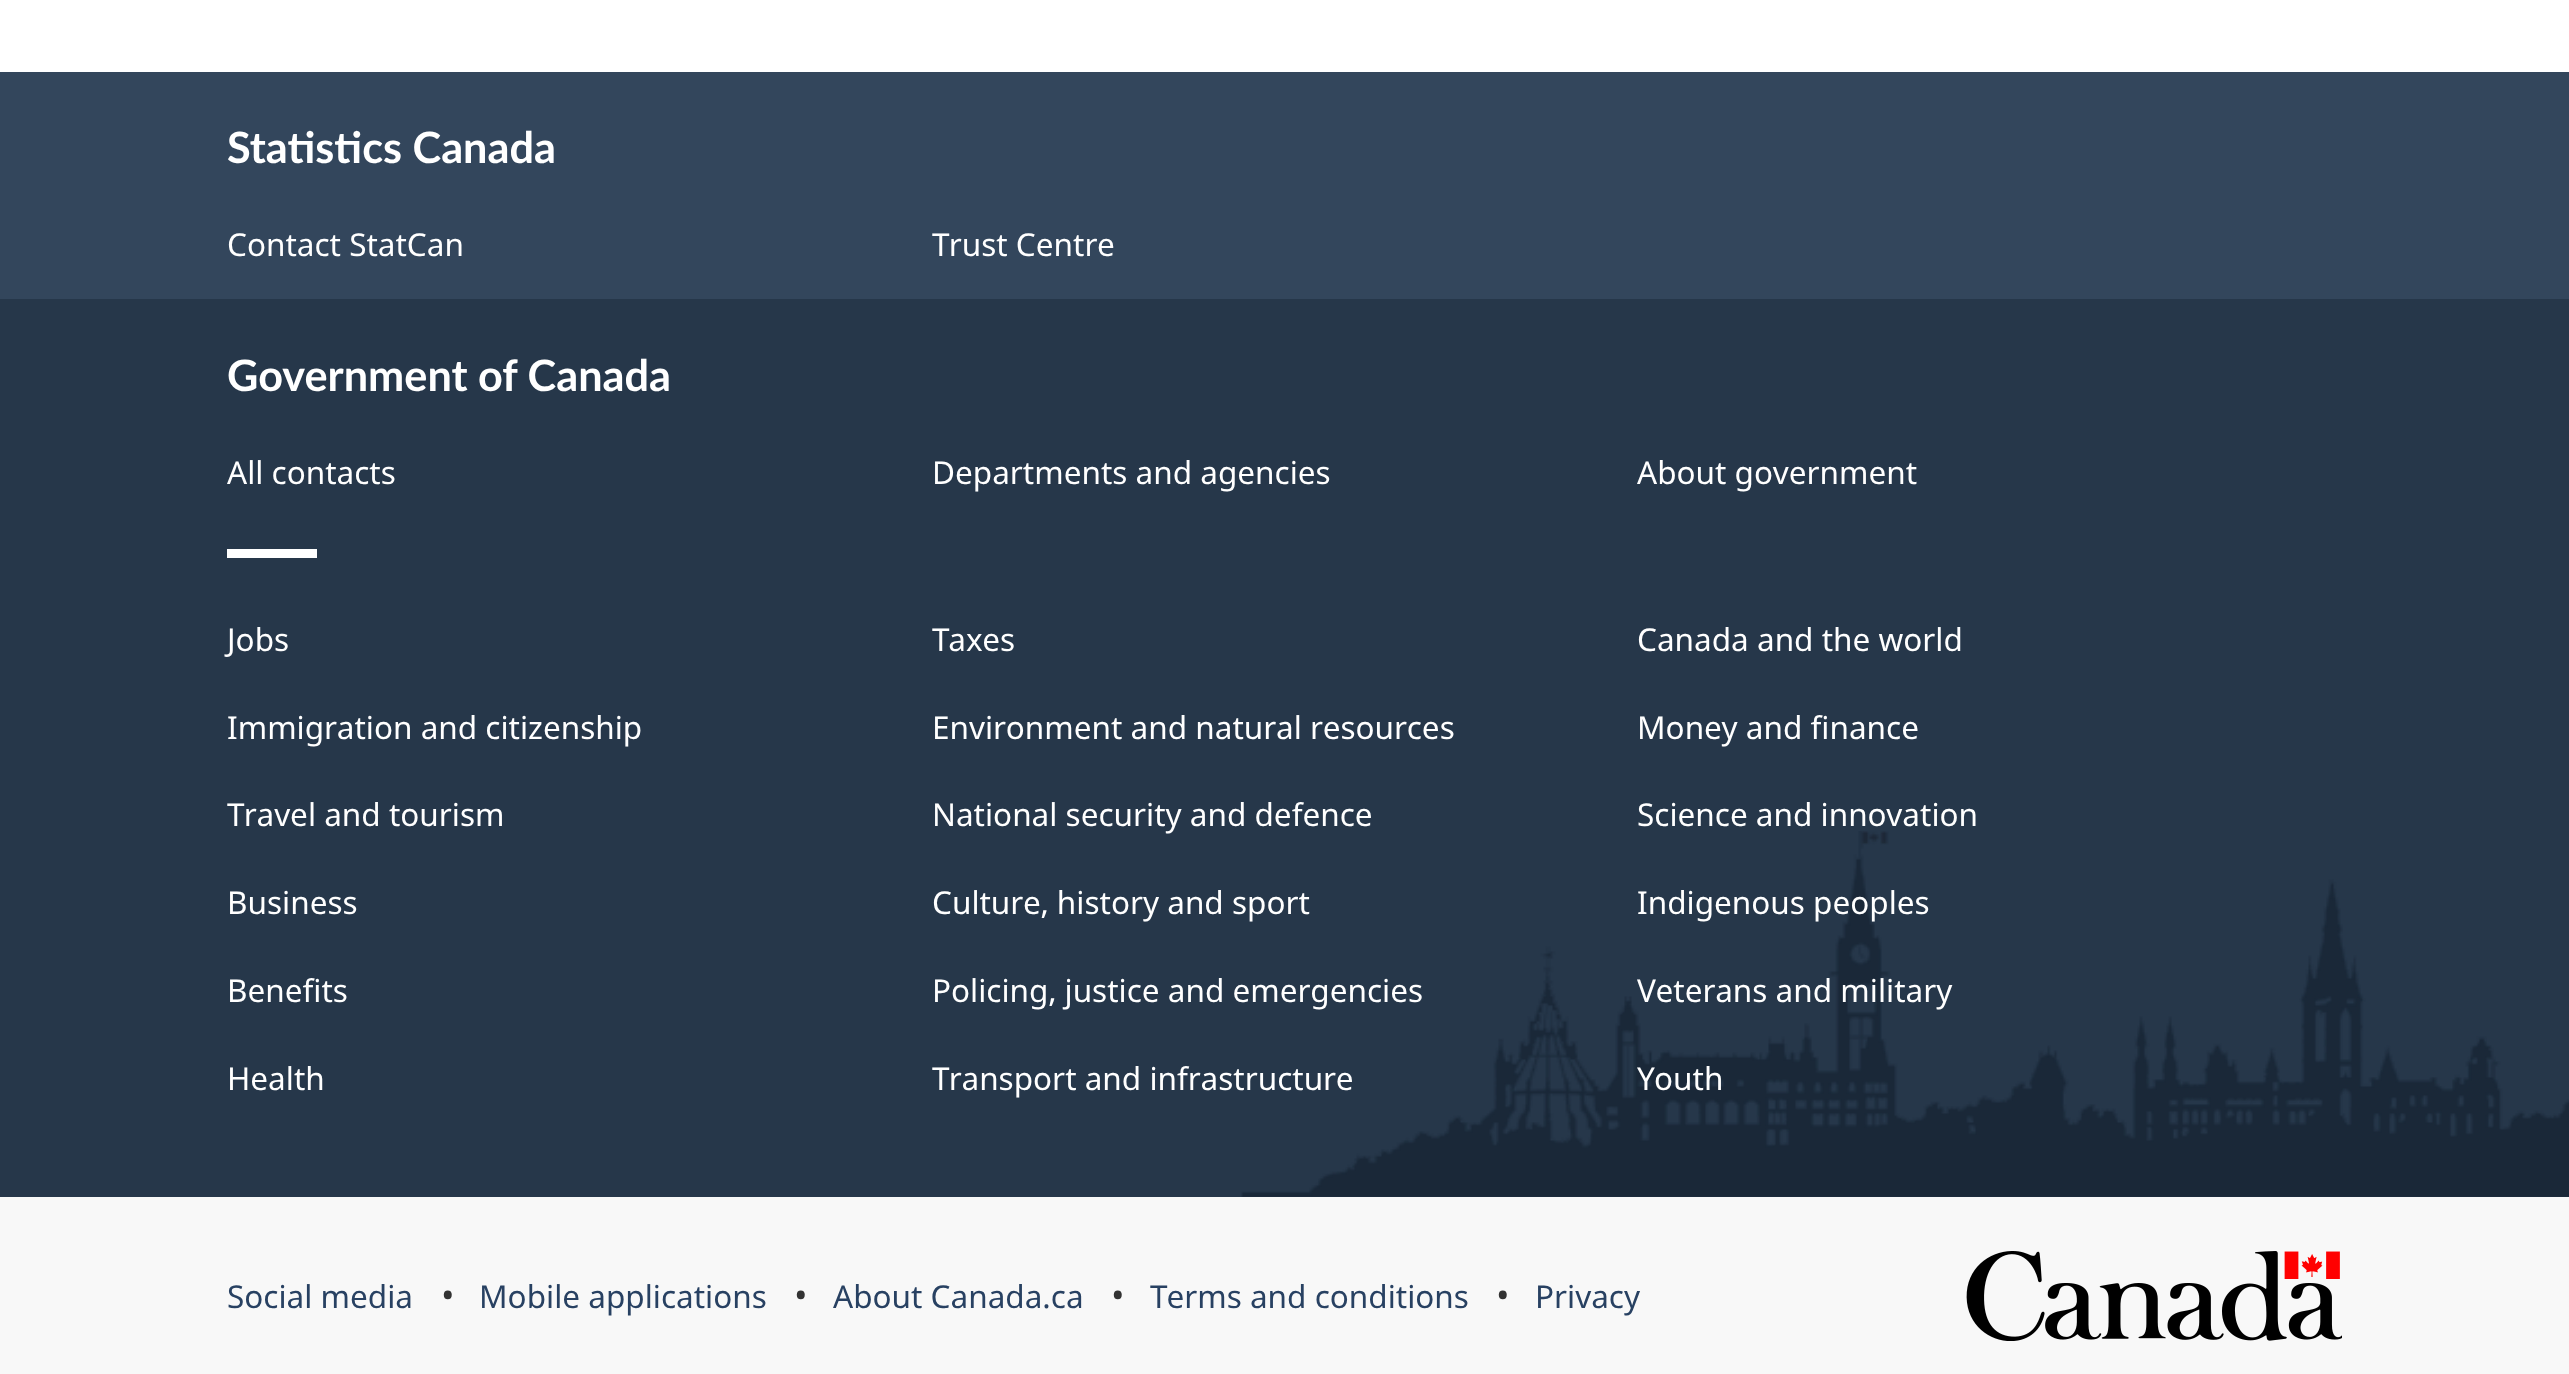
<svg xmlns="http://www.w3.org/2000/svg" width="2569" height="1374" viewBox="0 0 2569 1374">
  <rect width="100%" height="100%" fill="rgb(255,255,255)"/>
  <rect x="0" y="72" width="2569" height="227" fill="rgb(51,70,92)"/>
  <text x="227" y="163" font-family="Lato" font-size="43.25" font-weight="bold" fill="rgb(255,255,255)">Statistics Canada</text>
  <g font-family="Noto Sans" font-size="31.5" fill="rgb(255,255,255)">
    <text x="227" y="256">Contact StatCan</text>
    <text x="932" y="256">Trust Centre</text>
  </g>
  <rect x="0" y="299" width="2569" height="898" fill="rgb(38,55,74)"/>
  <image x="1241" y="831" width="1328" height="366" href="pic1.png"/>
  <text x="227" y="391" font-family="Lato" font-size="43.25" font-weight="bold" fill="rgb(255,255,255)">Government of Canada</text>
  <g font-family="Noto Sans" font-size="31.5" fill="rgb(255,255,255)">
    <text x="227" y="484">All contacts</text>
    <text x="932" y="484">Departments and agencies</text>
    <text x="1637" y="484">About government</text>
  </g>
  <rect x="227" y="549" width="90" height="9" fill="rgb(255,255,255)"/>
  <g font-family="Noto Sans" font-size="31.5" fill="rgb(255,255,255)">
    <text x="227" y="651">Jobs</text>
    <text x="932" y="651">Taxes</text>
    <text x="1637" y="651">Canada and the world</text>
    <text x="227" y="739">Immigration and citizenship</text>
    <text x="932" y="739">Environment and natural resources</text>
    <text x="1637" y="739">Money and finance</text>
    <text x="227" y="826">Travel and tourism</text>
    <text x="932" y="826">National security and defence</text>
    <text x="1637" y="826">Science and innovation</text>
    <text x="227" y="914">Business</text>
    <text x="932" y="914">Culture, history and sport</text>
    <text x="1637" y="914">Indigenous peoples</text>
    <text x="227" y="1002">Benefits</text>
    <text x="932" y="1002">Policing, justice and emergencies</text>
    <text x="1637" y="1002">Veterans and military</text>
    <text x="227" y="1090">Health</text>
    <text x="932" y="1090">Transport and infrastructure</text>
    <text x="1637" y="1090">Youth</text>
  </g>
  <rect x="0" y="1197" width="2569" height="177" fill="rgb(248,248,248)"/>
  <text x="227" y="1308" font-family="Noto Sans" font-size="31.5" fill="rgb(40,65,98)">Social media</text>
  <text x="441" y="1308" font-family="Noto Sans" font-size="36" fill="rgb(51,51,51)">•</text>
  <text x="479" y="1308" font-family="Noto Sans" font-size="31.5" fill="rgb(40,65,98)">Mobile applications</text>
  <text x="794" y="1308" font-family="Noto Sans" font-size="36" fill="rgb(51,51,51)">•</text>
  <text x="833" y="1308" font-family="Noto Sans" font-size="31.5" fill="rgb(40,65,98)">About Canada.ca</text>
  <text x="1111" y="1308" font-family="Noto Sans" font-size="36" fill="rgb(51,51,51)">•</text>
  <text x="1150" y="1308" font-family="Noto Sans" font-size="31.5" fill="rgb(40,65,98)">Terms and conditions</text>
  <text x="1496" y="1308" font-family="Noto Sans" font-size="36" fill="rgb(51,51,51)">•</text>
  <text x="1535" y="1308" font-family="Noto Sans" font-size="31.5" fill="rgb(40,65,98)">Privacy</text>
  <image x="1966" y="1251" width="376" height="90" href="pic2.png"/>
</svg>
